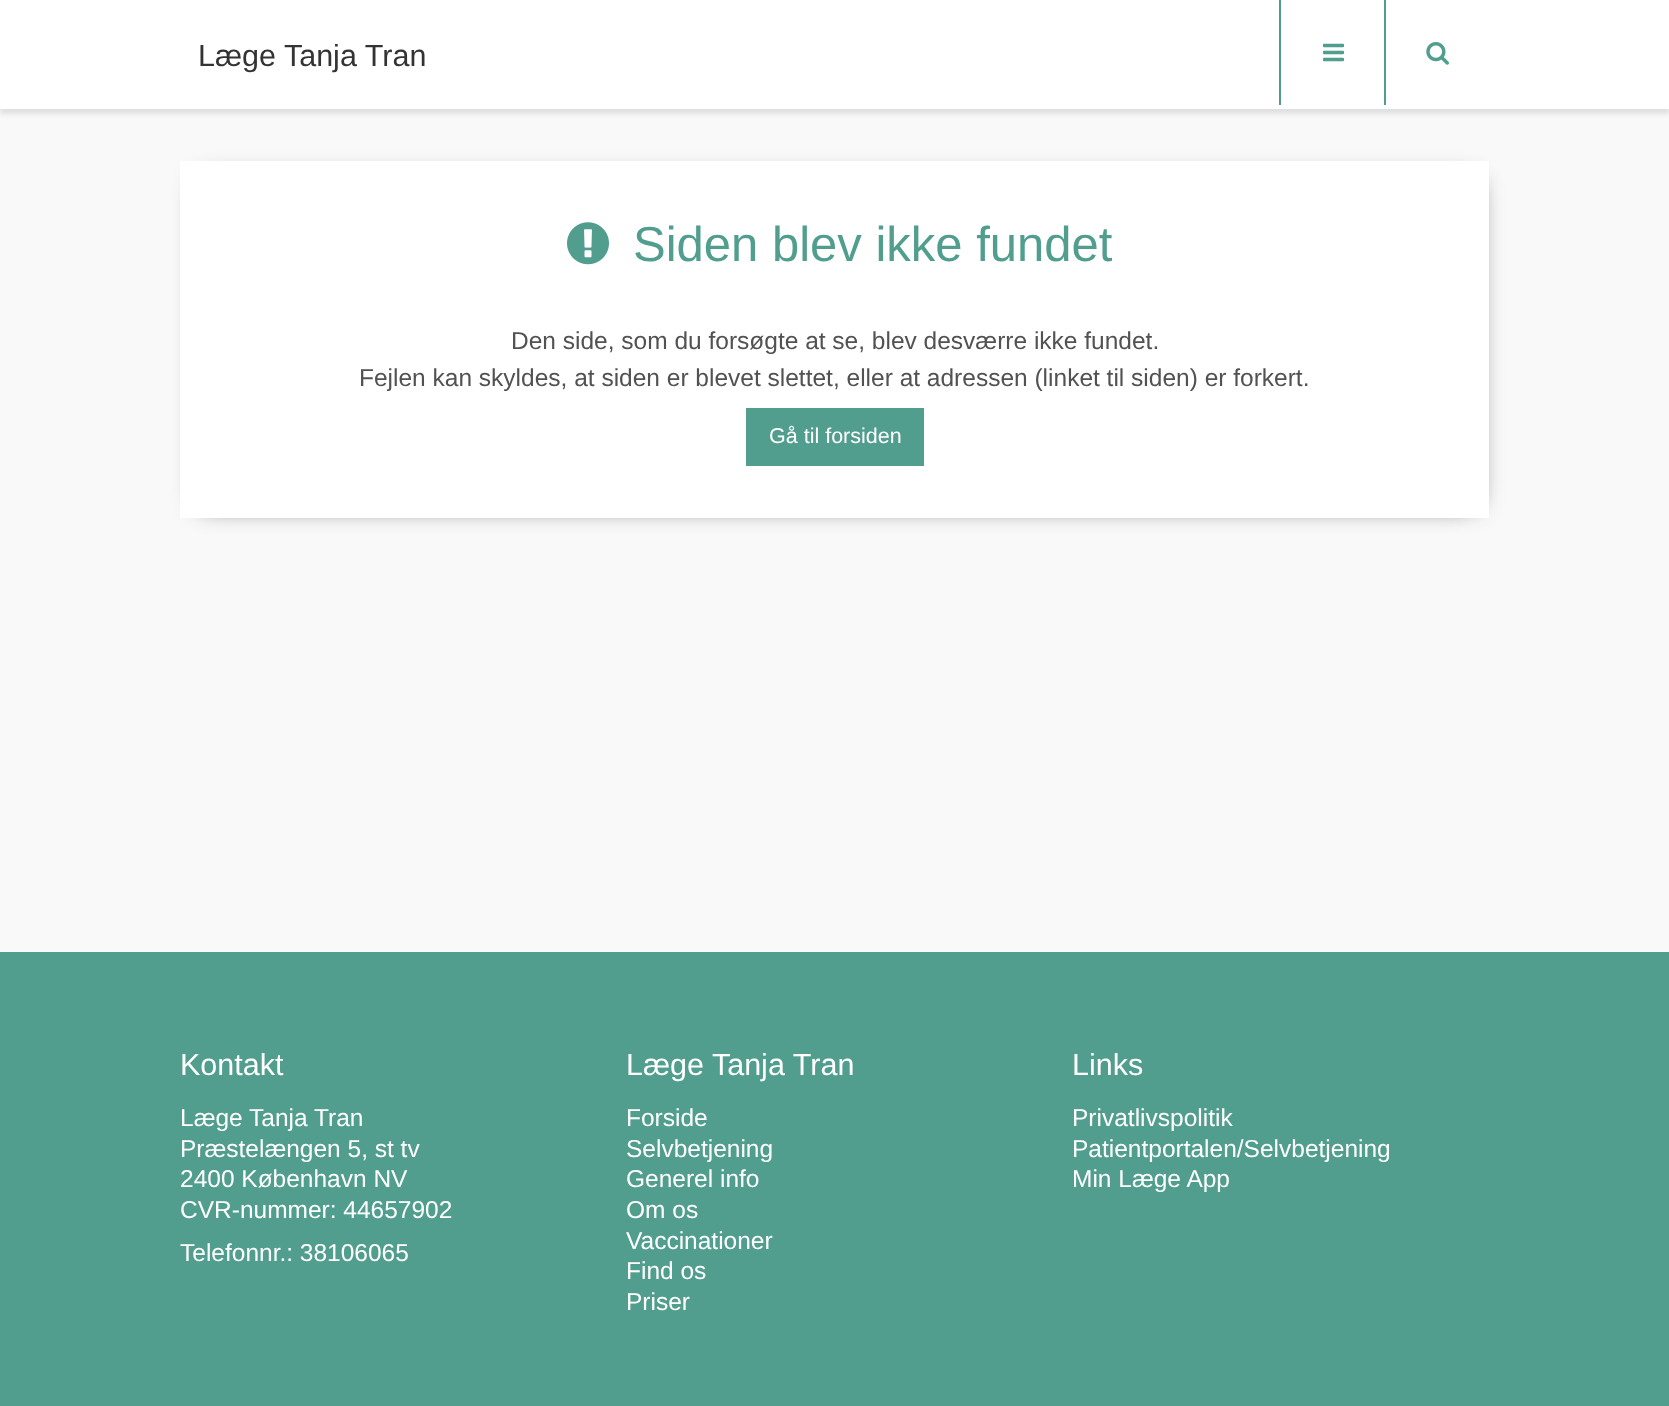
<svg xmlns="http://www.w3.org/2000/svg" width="1669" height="1406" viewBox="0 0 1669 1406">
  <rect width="100%" height="100%" fill="rgb(249,249,249)"/>
  <rect x="0" y="5" width="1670" height="109" fill="rgba(0,0,0,0.1)" filter="blur(2.5px)"/>
  <rect x="0" y="0" width="1669" height="109" fill="rgb(255,255,255)"/>
  <text x="198" y="66" font-family="Liberation Sans" font-size="30.5" fill="rgb(51,51,51)">Læge Tanja Tran</text>
  <rect x="1279" y="0" width="2" height="105" fill="rgb(81,158,142)"/>
  <image x="1323" y="43" width="21" height="19" href="pic1.png"/>
  <rect x="1384" y="0" width="2" height="105" fill="rgb(81,158,142)"/>
  <image x="1426" y="42" width="23" height="23" href="pic2.png"/>
  <rect x="201" y="182" width="1274" height="322" fill="rgb(34,34,34)" filter="blur(13px)"/>
  <rect x="180" y="161" width="1309" height="357" fill="rgb(255,255,255)"/>
  <image x="567" y="222" width="42" height="43" href="pic3.png"/>
  <text x="633" y="261" font-family="Liberation Sans" font-size="49" fill="rgb(81,158,142)">Siden blev ikke fundet</text>
  <g font-family="Liberation Sans" font-size="24.5" fill="rgb(82,82,82)">
    <text x="511" y="349">Den side, som du forsøgte at se, blev desværre ikke fundet.</text>
    <text x="359" y="386">Fejlen kan skyldes, at siden er blevet slettet, eller at adressen (linket til siden) er forkert.</text>
  </g>
  <rect x="746" y="408" width="178" height="58" fill="rgb(81,158,142)"/>
  <text x="769" y="443" font-family="Liberation Sans" font-size="21.5" fill="rgb(255,255,255)">Gå til forsiden</text>
  <rect x="0" y="952" width="1669" height="454" fill="rgb(81,158,142)"/>
  <text x="180" y="1075" font-family="Liberation Sans" font-size="30.5" fill="rgb(255,255,255)">Kontakt</text>
  <g font-family="Liberation Sans" font-size="24.5" fill="rgb(255,255,255)">
    <text>
      <tspan x="180" y="1126">Læge Tanja Tran</tspan>
      <tspan x="180" y="1157">Præstelængen 5, st tv</tspan>
      <tspan x="180" y="1187">2400 København NV</tspan>
      <tspan x="180" y="1218">CVR-nummer: 44657902</tspan>
      <tspan x="180" y="1261">Telefonnr.: 38106065</tspan>
    </text>
  </g>
  <text x="626" y="1075" font-family="Liberation Sans" font-size="30.5" fill="rgb(255,255,255)">Læge Tanja Tran</text>
  <g font-family="Liberation Sans" font-size="24.5" fill="rgb(255,255,255)">
    <text>
      <tspan x="626" y="1126">Forside</tspan>
      <tspan x="626" y="1157">Selvbetjening</tspan>
      <tspan x="626" y="1187">Generel info</tspan>
      <tspan x="626" y="1218">Om os</tspan>
      <tspan x="626" y="1249">Vaccinationer</tspan>
      <tspan x="626" y="1279">Find os</tspan>
      <tspan x="626" y="1310">Priser</tspan>
    </text>
  </g>
  <text x="1072" y="1075" font-family="Liberation Sans" font-size="30.5" fill="rgb(255,255,255)">Links</text>
  <g font-family="Liberation Sans" font-size="24.5" fill="rgb(255,255,255)">
    <text>
      <tspan x="1072" y="1126">Privatlivspolitik</tspan>
      <tspan x="1072" y="1157">Patientportalen/Selvbetjening</tspan>
      <tspan x="1072" y="1187">Min Læge App</tspan>
    </text>
  </g>
</svg>
